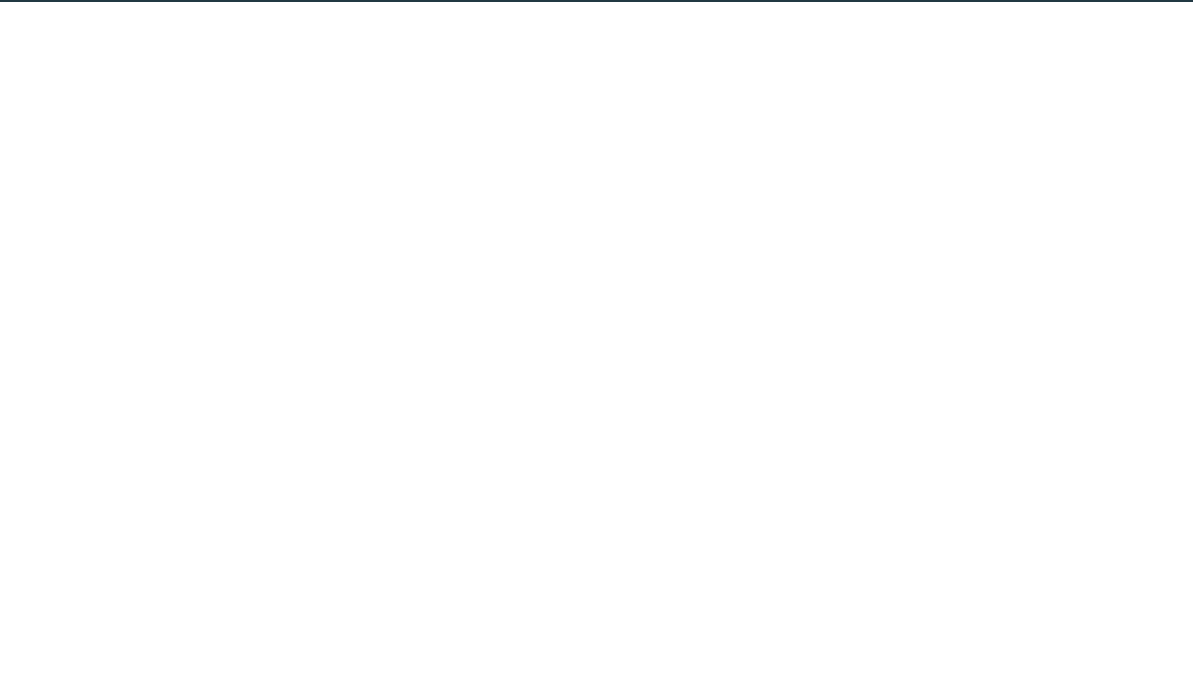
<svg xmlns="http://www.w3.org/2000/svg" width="1193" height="693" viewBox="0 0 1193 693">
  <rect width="100%" height="100%" fill="rgb(255,255,255)"/>
  <rect x="0" y="0" width="1193" height="2" fill="rgb(33,57,67)"/>
</svg>
